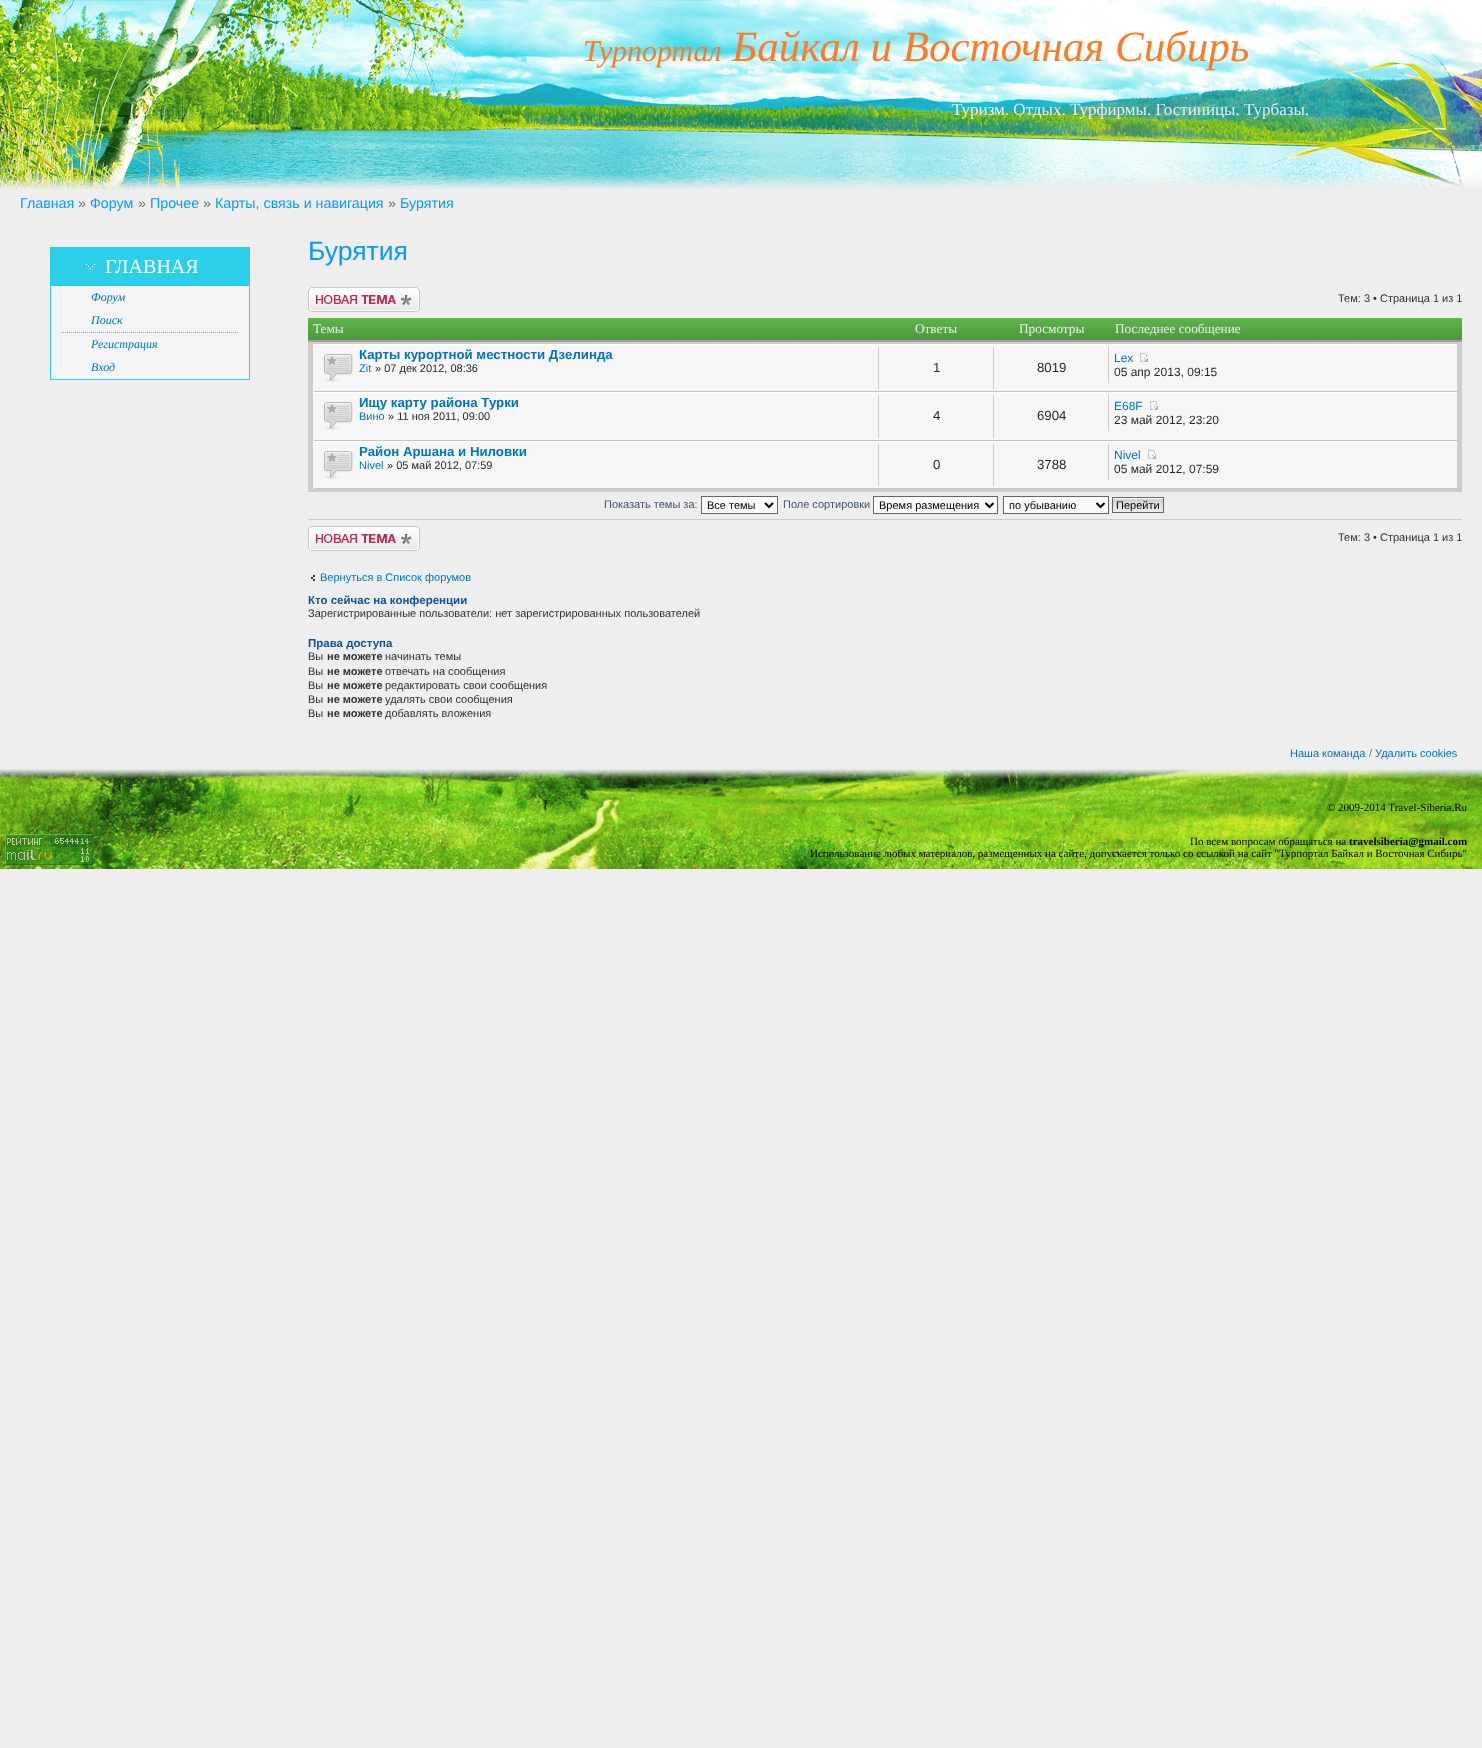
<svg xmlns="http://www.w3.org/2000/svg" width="1482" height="1748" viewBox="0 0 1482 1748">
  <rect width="100%" height="100%" fill="rgb(238,238,238)"/>
  <image x="0" y="0" width="1482" height="190" href="pic1.png"/>
  <text x="583" y="61" font-family="Liberation Serif" font-size="30" font-style="italic" fill="rgb(255,123,35)">Турпортал</text>
  <text x="732" y="61" font-family="Liberation Serif" font-size="43" font-style="italic" fill="rgb(255,123,35)">Байкал и Восточная Сибирь</text>
  <text x="952" y="115" font-family="Liberation Serif" font-size="17" fill="rgb(237,237,237)">Туризм. Отдых. Турфирмы. Гостиницы. Турбазы.</text>
  <text x="20" y="208" font-family="Liberation Sans" font-size="14.25" fill="rgb(8,153,255)">Главная</text>
  <text x="78" y="208" font-family="Liberation Sans" font-size="14.25" fill="rgb(113,113,113)">»</text>
  <text x="90" y="208" font-family="Liberation Sans" font-size="14.25" fill="rgb(8,153,255)">Форум</text>
  <text x="138" y="208" font-family="Liberation Sans" font-size="14.25" fill="rgb(113,113,113)">»</text>
  <text x="150" y="208" font-family="Liberation Sans" font-size="14.25" fill="rgb(8,153,255)">Прочее</text>
  <text x="203" y="208" font-family="Liberation Sans" font-size="14.25" fill="rgb(113,113,113)">»</text>
  <text x="215" y="208" font-family="Liberation Sans" font-size="14.25" fill="rgb(8,153,255)">Карты, связь и навигация</text>
  <text x="388" y="208" font-family="Liberation Sans" font-size="14.25" fill="rgb(113,113,113)">»</text>
  <text x="400" y="208" font-family="Liberation Sans" font-size="14.25" fill="rgb(8,153,255)">Бурятия</text>
  <rect x="50" y="247" width="200" height="39" fill="rgb(45,206,234)"/>
  <image x="86" y="264" width="9" height="8" href="pic2.png"/>
  <text x="105" y="273" font-family="Liberation Serif" font-size="20" fill="rgb(255,255,255)">ГЛАВНАЯ</text>
  <rect x="51" y="286" width="198" height="46" fill="rgb(244,244,244)"/>
  <rect x="249" y="286" width="1" height="46" fill="rgb(45,206,234)"/>
  <rect x="50" y="286" width="1" height="46" fill="rgb(45,206,234)"/>
  <g font-family="Liberation Serif" font-size="12" font-style="italic" fill="rgb(0,115,197)">
    <text>
      <tspan x="91" y="301">Форум</tspan>
      <tspan x="91" y="324">Поиск</tspan>
    </text>
  </g>
  <rect x="50" y="332" width="200" height="1" fill="rgb(244,244,244)"/>
  <rect x="249" y="332" width="1" height="47" fill="rgb(45,206,234)"/>
  <rect x="50" y="332" width="1" height="47" fill="rgb(45,206,234)"/>
  <path d="M61 332.5H239" fill="none" stroke="rgb(45,206,234)" stroke-dasharray="1 1"/>
  <rect x="51" y="333" width="198" height="46" fill="rgb(244,244,244)"/>
  <g font-family="Liberation Serif" font-size="12" font-style="italic" fill="rgb(0,115,197)">
    <text>
      <tspan x="91" y="348">Регистрация</tspan>
      <tspan x="91" y="371">Вход</tspan>
    </text>
  </g>
  <rect x="50" y="379" width="200" height="1" fill="rgb(45,206,234)"/>
  <text x="308" y="260" font-family="Liberation Sans" font-size="26.5" fill="rgb(8,153,255)">Бурятия</text>
  <image x="308" y="287" width="112" height="25" href="pic3.png"/>
  <text x="1338" y="302" font-family="Liberation Sans" font-size="11" fill="rgb(48,48,48)">Тем: 3 • Страница 1 из 1</text>
  <rect x="308" y="342" width="1154" height="150" fill="rgb(208,205,200)"/>
  <image x="308" y="318" width="1154" height="24" href="pic4.png"/>
  <g font-family="Liberation Serif" font-size="13.25" fill="rgb(237,237,237)">
    <text x="313" y="333">Темы</text>
    <text x="915" y="333">Ответы</text>
    <text x="1019" y="333">Просмотры</text>
    <text x="1115" y="333">Последнее сообщение</text>
  </g>
  <rect x="314" y="345" width="1142" height="46" fill="rgb(246,246,246)"/>
  <rect x="313" y="344" width="1144" height="1" fill="rgb(255,255,255)"/>
  <rect x="1456" y="344" width="1" height="48" fill="rgb(246,246,246)"/>
  <rect x="313" y="391" width="1144" height="1" fill="rgb(197,197,197)"/>
  <rect x="313" y="344" width="1" height="48" fill="rgb(246,246,246)"/>
  <image x="324" y="354" width="29" height="28" href="pic5.png"/>
  <text x="359" y="359" font-family="Liberation Sans" font-size="13.25" font-weight="bold" fill="rgb(0,115,197)">Карты курортной местности Дзелинда</text>
  <text x="359" y="372" font-family="Liberation Sans" font-size="11" fill="rgb(0,115,197)">Zit</text>
  <text x="375" y="372" font-family="Liberation Sans" font-size="11" fill="rgb(41,40,46)">» 07 дек 2012, 08:36</text>
  <rect x="878" y="347" width="1" height="42" fill="rgb(208,205,200)"/>
  <text x="933" y="372" font-family="Liberation Sans" font-size="13.25" fill="rgb(41,40,46)">1</text>
  <rect x="993" y="347" width="1" height="42" fill="rgb(208,205,200)"/>
  <text x="1037" y="372" font-family="Liberation Sans" font-size="13.25" fill="rgb(41,40,46)">8019</text>
  <rect x="1108" y="347" width="1" height="36" fill="rgb(208,205,200)"/>
  <text x="1114" y="362" font-family="Liberation Sans" font-size="12" fill="rgb(0,115,197)">Lex</text>
  <image x="1140" y="353" width="8" height="9" href="pic6.png"/>
  <text x="1114" y="376" font-family="Liberation Sans" font-size="12" fill="rgb(41,40,46)">05 апр 2013, 09:15</text>
  <rect x="314" y="393" width="1142" height="47" fill="rgb(246,246,246)"/>
  <rect x="313" y="392" width="1144" height="1" fill="rgb(255,255,255)"/>
  <rect x="1456" y="392" width="1" height="49" fill="rgb(246,246,246)"/>
  <rect x="313" y="440" width="1144" height="1" fill="rgb(197,197,197)"/>
  <rect x="313" y="392" width="1" height="49" fill="rgb(246,246,246)"/>
  <image x="324" y="402" width="29" height="28" href="pic5.png"/>
  <text x="359" y="407" font-family="Liberation Sans" font-size="13.25" font-weight="bold" fill="rgb(0,115,197)">Ищу карту района Турки</text>
  <text x="359" y="420" font-family="Liberation Sans" font-size="11" fill="rgb(0,115,197)">Вино</text>
  <text x="388" y="420" font-family="Liberation Sans" font-size="11" fill="rgb(41,40,46)">» 11 ноя 2011, 09:00</text>
  <rect x="878" y="395" width="1" height="43" fill="rgb(208,205,200)"/>
  <text x="933" y="420" font-family="Liberation Sans" font-size="13.25" fill="rgb(41,40,46)">4</text>
  <rect x="993" y="395" width="1" height="43" fill="rgb(208,205,200)"/>
  <text x="1037" y="420" font-family="Liberation Sans" font-size="13.25" fill="rgb(41,40,46)">6904</text>
  <rect x="1108" y="395" width="1" height="36" fill="rgb(208,205,200)"/>
  <text x="1114" y="410" font-family="Liberation Sans" font-size="12" fill="rgb(0,115,197)">E68F</text>
  <image x="1150" y="401" width="8" height="9" href="pic6.png"/>
  <text x="1114" y="424" font-family="Liberation Sans" font-size="12" fill="rgb(41,40,46)">23 май 2012, 23:20</text>
  <rect x="314" y="442" width="1142" height="46" fill="rgb(246,246,246)"/>
  <rect x="313" y="441" width="1144" height="1" fill="rgb(255,255,255)"/>
  <rect x="1456" y="441" width="1" height="48" fill="rgb(246,246,246)"/>
  <rect x="313" y="488" width="1144" height="1" fill="rgb(197,197,197)"/>
  <rect x="313" y="441" width="1" height="48" fill="rgb(246,246,246)"/>
  <image x="324" y="451" width="29" height="28" href="pic5.png"/>
  <text x="359" y="456" font-family="Liberation Sans" font-size="13.25" font-weight="bold" fill="rgb(0,115,197)">Район Аршана и Ниловки</text>
  <text x="359" y="469" font-family="Liberation Sans" font-size="11" fill="rgb(0,115,197)">Nivel</text>
  <text x="387" y="469" font-family="Liberation Sans" font-size="11" fill="rgb(41,40,46)">» 05 май 2012, 07:59</text>
  <rect x="878" y="444" width="1" height="42" fill="rgb(208,205,200)"/>
  <text x="933" y="469" font-family="Liberation Sans" font-size="13.25" fill="rgb(41,40,46)">0</text>
  <rect x="993" y="444" width="1" height="42" fill="rgb(208,205,200)"/>
  <text x="1037" y="469" font-family="Liberation Sans" font-size="13.25" fill="rgb(41,40,46)">3788</text>
  <rect x="1108" y="444" width="1" height="36" fill="rgb(208,205,200)"/>
  <text x="1114" y="459" font-family="Liberation Sans" font-size="12" fill="rgb(0,115,197)">Nivel</text>
  <image x="1148" y="450" width="8" height="9" href="pic6.png"/>
  <text x="1114" y="473" font-family="Liberation Sans" font-size="12" fill="rgb(41,40,46)">05 май 2012, 07:59</text>
  <text x="604" y="508" font-family="Liberation Sans" font-size="11" fill="rgb(66,80,103)">Показать темы за:</text>
  <rect x="701.5" y="496.5" width="76" height="17" fill="rgb(250,250,250)" stroke="rgb(102,102,102)"/>
  <path d="M765 503L769 507L773 503" fill="none" stroke="rgb(0,0,0)" stroke-width="2"/>
  <text x="707" y="509" font-family="Liberation Sans" font-size="11" fill="rgb(0,0,0)">Все темы</text>
  <text x="783" y="508" font-family="Liberation Sans" font-size="11" fill="rgb(66,80,103)">Поле сортировки</text>
  <rect x="873.5" y="496.5" width="124" height="17" fill="rgb(250,250,250)" stroke="rgb(102,102,102)"/>
  <path d="M985.5 503L989.5 507L993.5 503" fill="none" stroke="rgb(0,0,0)" stroke-width="2"/>
  <text x="879" y="509" font-family="Liberation Sans" font-size="11" fill="rgb(0,0,0)">Время размещения</text>
  <rect x="1003.5" y="496.5" width="105" height="17" fill="rgb(250,250,250)" stroke="rgb(102,102,102)"/>
  <path d="M1096.5 503L1100.5 507L1104.5 503" fill="none" stroke="rgb(0,0,0)" stroke-width="2"/>
  <text x="1009" y="509" font-family="Liberation Sans" font-size="11" fill="rgb(0,0,0)">по убыванию</text>
  <image x="1113" y="498" width="50" height="14" href="pic7.png"/>
  <rect x="1112.5" y="497.5" width="51" height="15" fill="none" stroke="rgb(102,102,102)"/>
  <text x="1116" y="509" font-family="Liberation Sans" font-size="11" fill="rgb(0,0,0)">Перейти</text>
  <rect x="308" y="519" width="1154" height="1" fill="rgb(204,204,204)"/>
  <image x="308" y="526" width="112" height="25" href="pic3.png"/>
  <text x="1338" y="541" font-family="Liberation Sans" font-size="11" fill="rgb(48,48,48)">Тем: 3 • Страница 1 из 1</text>
  <image x="311" y="575" width="4" height="6" href="pic8.png"/>
  <text x="320" y="581" font-family="Liberation Sans" font-size="11" fill="rgb(0,115,197)">Вернуться в Список форумов</text>
  <text x="308" y="604" font-family="Liberation Sans" font-size="11.5" font-weight="bold" fill="rgb(17,80,152)">Кто сейчас на конференции</text>
  <text x="308" y="617" font-family="Liberation Sans" font-size="11" fill="rgb(48,48,48)">Зарегистрированные пользователи: нет зарегистрированных пользователей</text>
  <text x="308" y="647" font-family="Liberation Sans" font-size="11.5" font-weight="bold" fill="rgb(17,80,152)">Права доступа</text>
  <text x="308" y="660" font-family="Liberation Sans" font-size="11" fill="rgb(48,48,48)">Вы</text>
  <text x="327" y="660" font-family="Liberation Sans" font-size="11" font-weight="bold" fill="rgb(48,48,48)">не можете</text>
  <g font-family="Liberation Sans" font-size="11" fill="rgb(48,48,48)">
    <text x="385" y="660">начинать темы</text>
    <text x="308" y="675">Вы</text>
  </g>
  <text x="327" y="675" font-family="Liberation Sans" font-size="11" font-weight="bold" fill="rgb(48,48,48)">не можете</text>
  <g font-family="Liberation Sans" font-size="11" fill="rgb(48,48,48)">
    <text x="385" y="675">отвечать на сообщения</text>
    <text x="308" y="689">Вы</text>
  </g>
  <text x="327" y="689" font-family="Liberation Sans" font-size="11" font-weight="bold" fill="rgb(48,48,48)">не можете</text>
  <g font-family="Liberation Sans" font-size="11" fill="rgb(48,48,48)">
    <text x="385" y="689">редактировать свои сообщения</text>
    <text x="308" y="703">Вы</text>
  </g>
  <text x="327" y="703" font-family="Liberation Sans" font-size="11" font-weight="bold" fill="rgb(48,48,48)">не можете</text>
  <g font-family="Liberation Sans" font-size="11" fill="rgb(48,48,48)">
    <text x="385" y="703">удалять свои сообщения</text>
    <text x="308" y="717">Вы</text>
  </g>
  <text x="327" y="717" font-family="Liberation Sans" font-size="11" font-weight="bold" fill="rgb(48,48,48)">не можете</text>
  <text x="385" y="717" font-family="Liberation Sans" font-size="11" fill="rgb(48,48,48)">добавлять вложения</text>
  <text x="1290" y="757" font-family="Liberation Sans" font-size="11" fill="rgb(0,115,197)">Наша команда</text>
  <text x="1369" y="757" font-family="Liberation Sans" font-size="11" fill="rgb(113,113,113)">/</text>
  <text x="1375" y="757" font-family="Liberation Sans" font-size="11" fill="rgb(0,115,197)">Удалить cookies</text>
  <image x="0" y="769" width="1482" height="100" href="pic9.png"/>
  <image x="5" y="834" width="88" height="31" href="pic10.png"/>
  <g font-family="Liberation Serif" font-size="11" fill="rgb(0,0,0)">
    <text x="1327" y="811">© 2009-2014 Travel-Siberia.Ru</text>
    <text x="1190" y="845">По всем вопросам обращаться на</text>
  </g>
  <text x="1349" y="845" font-family="Liberation Serif" font-size="11" font-weight="bold" fill="rgb(0,0,0)">travelsiberia@gmail.com</text>
  <text x="810" y="857" font-family="Liberation Serif" font-size="11" fill="rgb(0,0,0)">Использование любых материалов, размещенных на сайте, допускается только со ссылкой на сайт "Турпортал Байкал и Восточная Сибирь"</text>
</svg>
